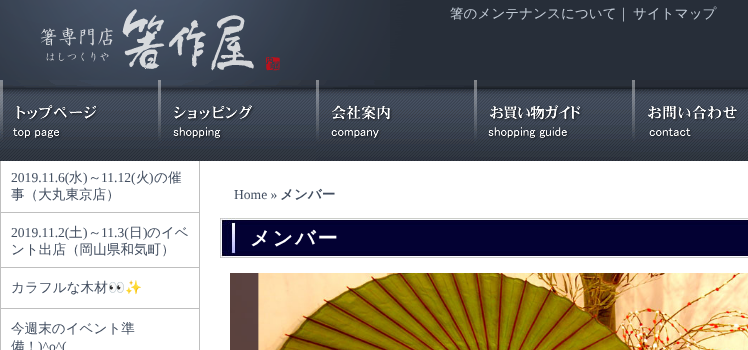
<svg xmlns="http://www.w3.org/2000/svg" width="748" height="350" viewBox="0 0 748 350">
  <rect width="100%" height="100%" fill="rgb(255,255,255)"/>
  <image x="0" y="0" width="748" height="80" href="pic1.png"/>
  <image x="0" y="0" width="390" height="80" href="pic2.png"/>
  <g font-family="WenQuanYi Zen Hei" font-size="13.6" font-weight="500" fill="rgb(193,202,213)">
    <text x="450" y="18">箸のメンテナンスについて｜</text>
    <text x="633" y="18">サイトマップ</text>
  </g>
  <rect x="0" y="157" width="1" height="193" fill="rgb(191,191,191)"/>
  <image x="0" y="80" width="158" height="81" href="pic3.png"/>
  <rect x="199" y="157" width="1" height="193" fill="rgb(191,191,191)"/>
  <image x="158" y="80" width="158" height="81" href="pic4.png"/>
  <image x="316" y="80" width="158" height="81" href="pic5.png"/>
  <image x="474" y="80" width="158" height="81" href="pic6.png"/>
  <image x="632" y="80" width="116" height="81" href="pic7.png"/>
  <rect x="1" y="212" width="198" height="1" fill="rgb(191,191,191)"/>
  <text x="11" y="182" font-family="Liberation Serif" font-size="13.6" fill="rgb(66,78,96)">2019.11.6(</text>
  <text x="69" y="182" font-family="WenQuanYi Zen Hei" font-size="13.6" font-weight="500" fill="rgb(66,78,96)">水</text>
  <text x="83" y="182" font-family="Liberation Serif" font-size="13.6" fill="rgb(66,78,96)">)</text>
  <text x="88" y="182" font-family="WenQuanYi Zen Hei" font-size="13.6" font-weight="500" fill="rgb(66,78,96)">～</text>
  <text x="101" y="182" font-family="Liberation Serif" font-size="13.6" fill="rgb(66,78,96)">11.12(</text>
  <text x="136" y="182" font-family="WenQuanYi Zen Hei" font-size="13.6" font-weight="500" fill="rgb(66,78,96)">火</text>
  <text x="149" y="182" font-family="Liberation Serif" font-size="13.6" fill="rgb(66,78,96)">)</text>
  <g font-family="WenQuanYi Zen Hei" font-size="13.6" font-weight="500" fill="rgb(66,78,96)">
    <text x="154" y="182">の催</text>
    <text x="11" y="199">事（大丸東京店）</text>
  </g>
  <rect x="1" y="267" width="198" height="1" fill="rgb(191,191,191)"/>
  <text x="11" y="237" font-family="Liberation Serif" font-size="13.6" fill="rgb(66,78,96)">2019.11.2(</text>
  <text x="69" y="237" font-family="WenQuanYi Zen Hei" font-size="13.6" font-weight="500" fill="rgb(66,78,96)">土</text>
  <text x="83" y="237" font-family="Liberation Serif" font-size="13.6" fill="rgb(66,78,96)">)</text>
  <text x="88" y="237" font-family="WenQuanYi Zen Hei" font-size="13.6" font-weight="500" fill="rgb(66,78,96)">～</text>
  <text x="101" y="237" font-family="Liberation Serif" font-size="13.6" fill="rgb(66,78,96)">11.3(</text>
  <text x="129" y="237" font-family="WenQuanYi Zen Hei" font-size="13.6" font-weight="500" fill="rgb(66,78,96)">日</text>
  <text x="143" y="237" font-family="Liberation Serif" font-size="13.6" fill="rgb(66,78,96)">)</text>
  <g font-family="WenQuanYi Zen Hei" font-size="13.6" font-weight="500" fill="rgb(66,78,96)">
    <text x="147" y="237">のイベ</text>
    <text x="11" y="254">ント出店（岡山県和気町）</text>
  </g>
  <rect x="1" y="308" width="198" height="1" fill="rgb(191,191,191)"/>
  <text x="11" y="292" font-family="WenQuanYi Zen Hei" font-size="13.6" font-weight="500" fill="rgb(66,78,96)">カラフルな木材</text>
  <text x="108" y="292" font-family="Noto Color Emoji" font-size="13.6" fill="rgb(66,78,96)">👀✨</text>
  <g font-family="WenQuanYi Zen Hei" font-size="13.6" font-weight="500" fill="rgb(66,78,96)">
    <text>
      <tspan x="11" y="333">今週末のイベント準</tspan>
      <tspan x="11" y="351">備！</tspan>
    </text>
  </g>
  <g font-family="Liberation Serif" font-size="13.6" fill="rgb(66,78,96)">
    <text x="38" y="351">)^o^(</text>
    <text x="234" y="199">Home »</text>
  </g>
  <text x="280" y="199" font-family="WenQuanYi Zen Hei" font-size="13.6" font-weight="bold" fill="rgb(66,78,96)">メンバー</text>
  <image x="220" y="218" width="528" height="40" href="pic8.png"/>
  <text x="250" y="245" font-family="WenQuanYi Zen Hei" font-size="20" font-weight="bold" letter-spacing="2" fill="rgb(255,255,255)">メンバー</text>
  <image x="230" y="273" width="518" height="77" href="pic9.png"/>
</svg>
